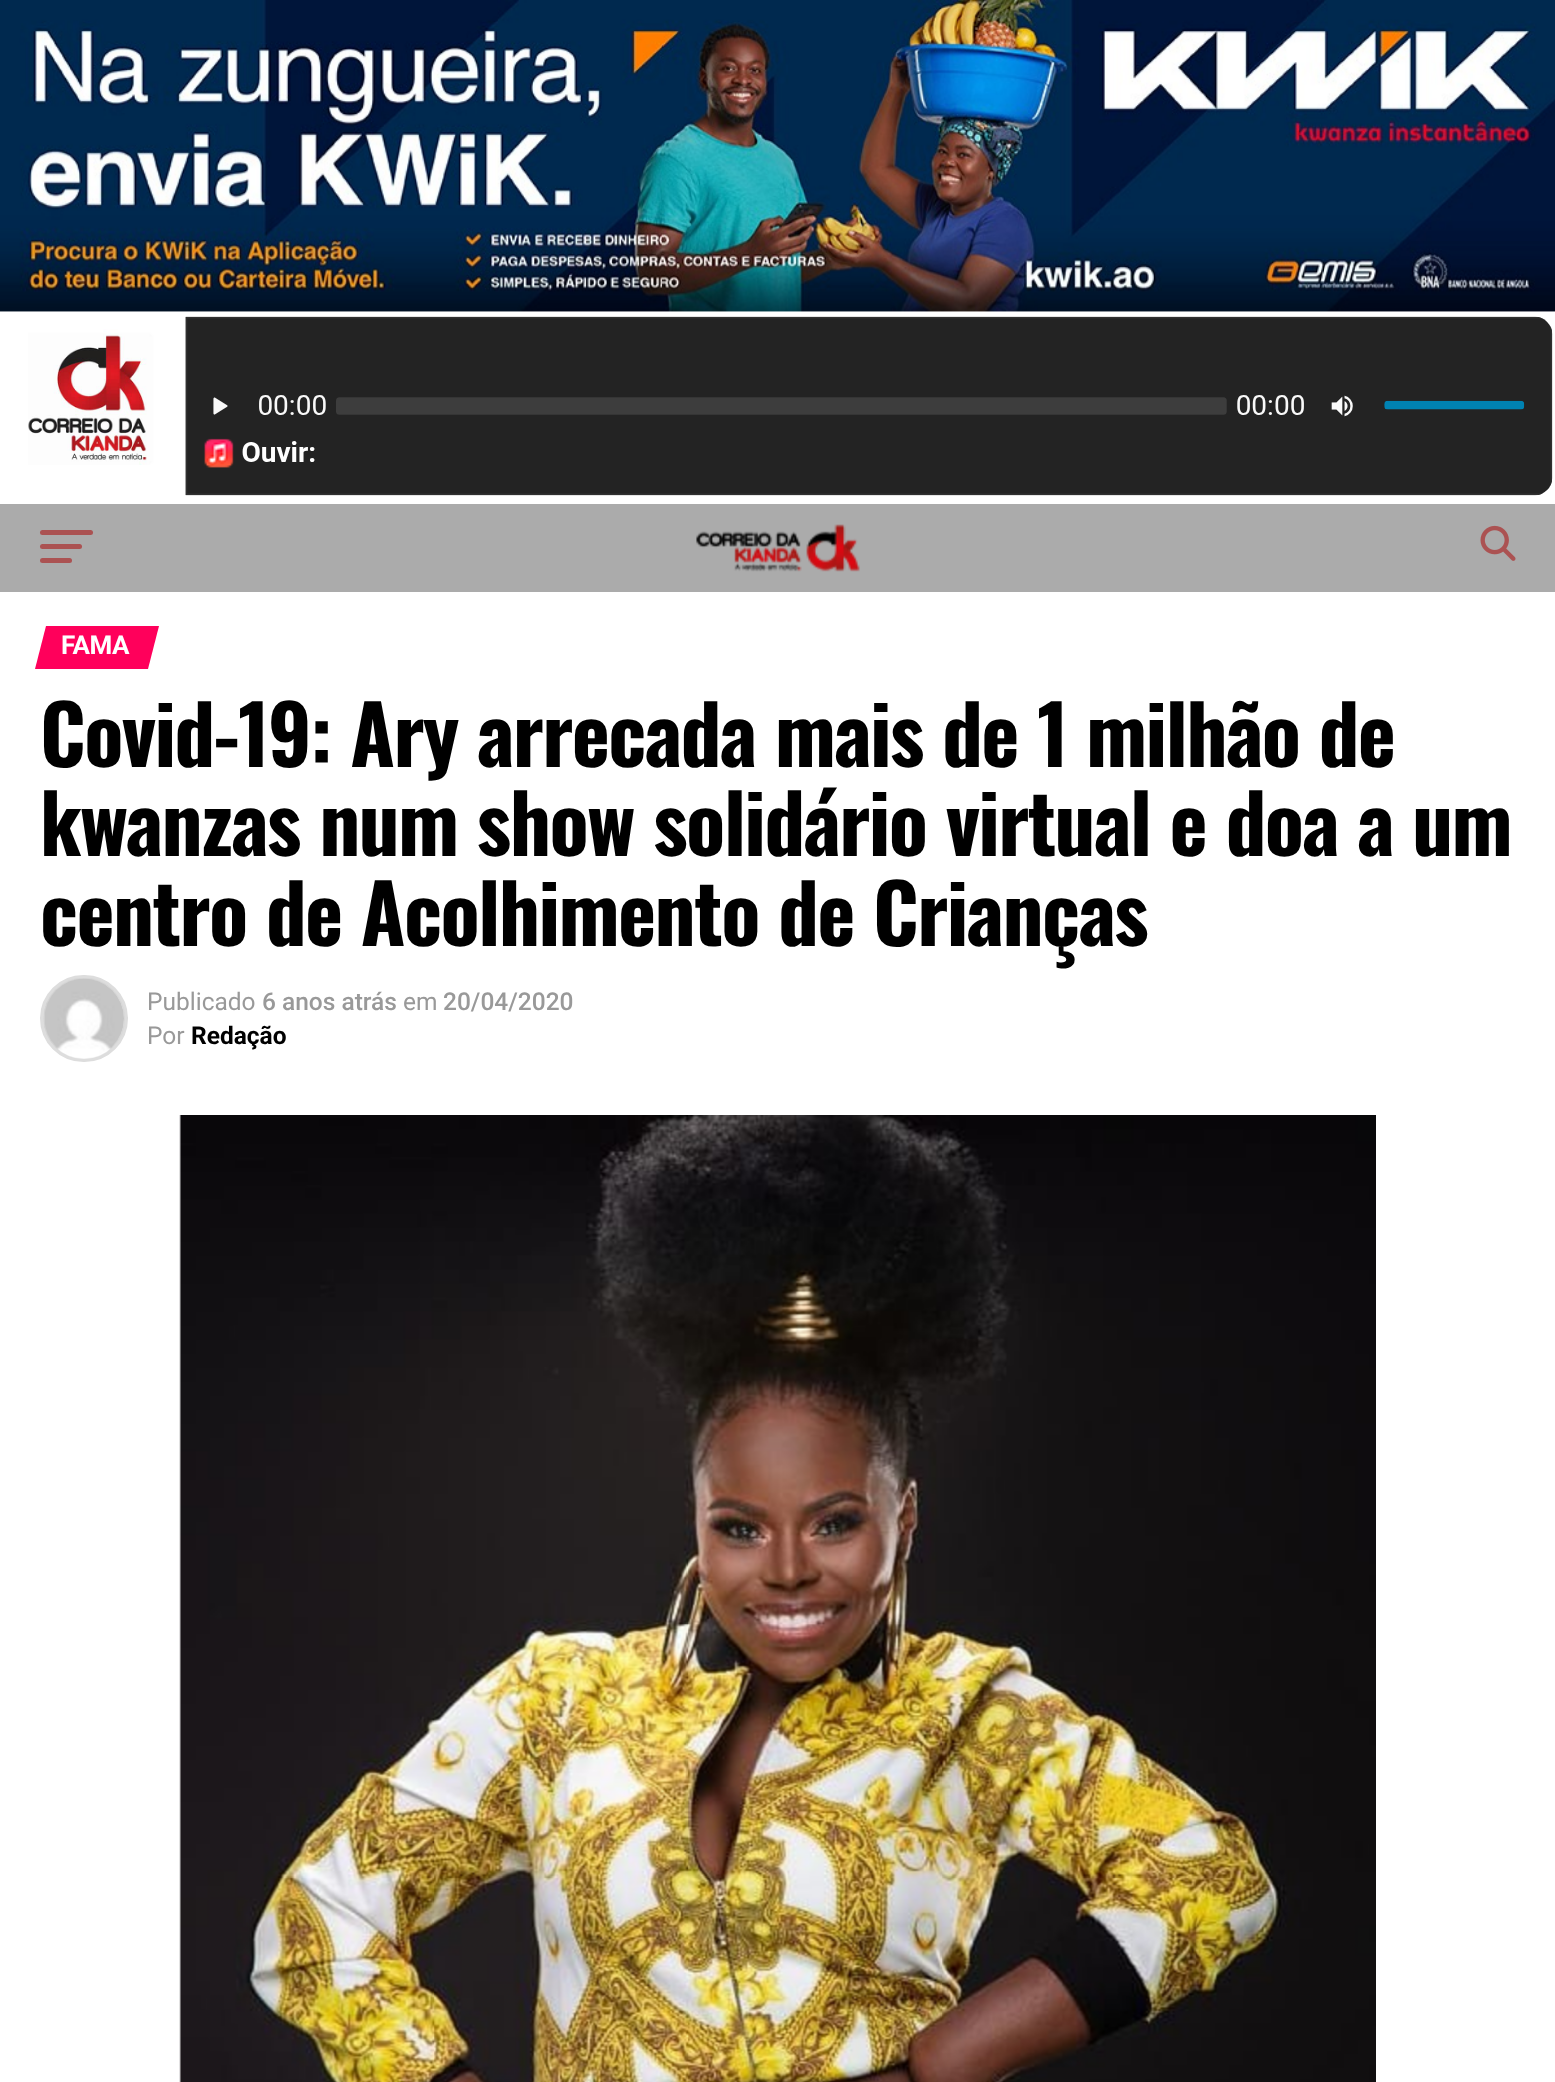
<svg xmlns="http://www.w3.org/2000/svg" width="1555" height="2082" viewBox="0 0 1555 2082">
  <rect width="100%" height="100%" fill="rgb(255,255,255)"/>
  <image x="0" y="0" width="1555" height="312" href="pic1.png"/>
  <image x="28" y="316" width="1525" height="180" href="pic2.png"/>
  <rect x="0" y="504" width="1555" height="88" fill="rgb(171,171,171)"/>
  <rect x="40" y="530" width="53" height="5" rx="2.5" fill="rgb(171,82,82)"/>
  <rect x="40" y="544" width="42" height="5" rx="2.5" fill="rgb(171,82,82)"/>
  <rect x="40" y="558" width="32" height="5" rx="2.5" fill="rgb(171,82,82)"/>
  <image x="696" y="524" width="164" height="48" href="pic3.png"/>
  <image x="1480" y="525" width="36" height="36" href="pic4.png"/>
  <path d="M46 626H159L148 669H35Z" fill="rgb(255,0,91)"/>
  <text x="61" y="654" font-family="Roboto" font-size="26" font-weight="bold" letter-spacing="-0.5" fill="rgb(255,255,255)">FAMA</text>
  <g font-family="Oswald" font-size="81.25" font-weight="bold" letter-spacing="-1.6" fill="rgb(0,0,0)">
    <text>
      <tspan x="40" y="767">Covid-19: Ary arrecada mais de 1 milhão de</tspan>
      <tspan x="40" y="856">kwanzas num show solidário virtual e doa a um</tspan>
      <tspan x="40" y="946">centro de Acolhimento de Crianças</tspan>
    </text>
  </g>
  <rect x="42" y="977" width="84" height="83" rx="41.5" fill="none" stroke="rgb(221,221,221)" stroke-width="4"/>
  <image x="43" y="978" width="82" height="81" href="pic5.png"/>
  <text x="147" y="1010" font-family="Roboto" font-size="24.5" fill="rgb(153,153,153)">Publicado</text>
  <text x="262" y="1010" font-family="Roboto" font-size="24.5" font-weight="500" fill="rgb(153,153,153)">6 anos atrás</text>
  <text x="403" y="1010" font-family="Roboto" font-size="24.5" fill="rgb(153,153,153)">em</text>
  <text x="443" y="1010" font-family="Roboto" font-size="24.5" font-weight="500" fill="rgb(153,153,153)">20/04/2020</text>
  <text x="147" y="1044" font-family="Roboto" font-size="24.5" fill="rgb(153,153,153)">Por</text>
  <text x="191" y="1044" font-family="Roboto" font-size="24.5" font-weight="bold" fill="rgb(0,0,0)">Redação</text>
  <image x="179" y="1115" width="1197" height="967" href="pic6.png"/>
</svg>
